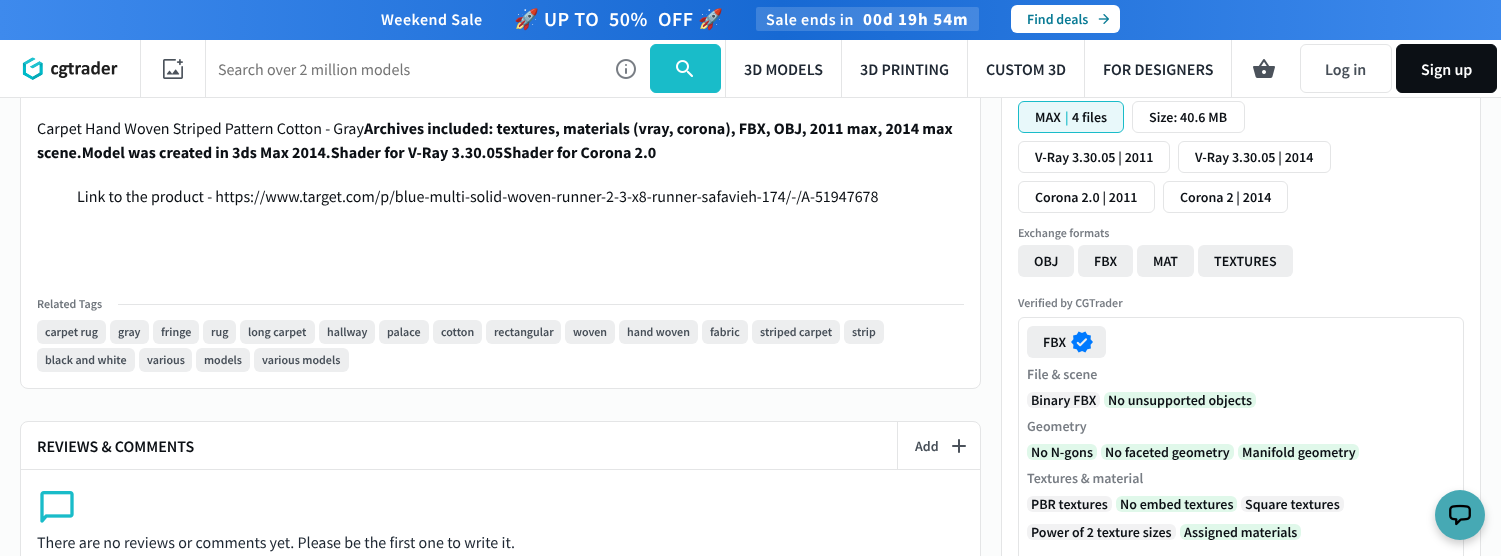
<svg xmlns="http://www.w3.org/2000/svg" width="1501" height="556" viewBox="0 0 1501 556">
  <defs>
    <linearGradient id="g1" gradientUnits="userSpaceOnUse" x1="0" y1="18" x2="1501" y2="20"><stop offset="0" stop-color="rgb(62,138,237)"/><stop offset="0.52" stop-color="rgb(23,105,211)"/><stop offset="1" stop-color="rgb(62,138,237)"/></linearGradient>
  </defs>
  <rect width="100%" height="100%" fill="rgb(251,252,252)"/>
  <rect x="20.5" y="42.5" width="960" height="346" rx="7.5" fill="rgb(255,255,255)" stroke="rgb(228,229,230)"/>
  <rect x="1002" y="98" width="478" height="458" fill="rgb(255,255,255)"/>
  <rect x="1001.5" y="19.5" width="479" height="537" fill="none" stroke="rgb(228,229,230)"/>
  <rect x="0" y="40" width="1501" height="57" fill="rgb(255,255,255)"/>
  <rect x="0" y="0" width="1501" height="40" fill="url(#g1)"/>
  <text x="381" y="25" font-family="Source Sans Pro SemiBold" font-size="16" font-weight="600" letter-spacing="0.5" fill="rgb(255,255,255)">Weekend Sale</text>
  <text x="514" y="26" font-family="Noto Color Emoji" font-size="20" font-weight="bold" letter-spacing="0.5" fill="rgb(255,255,255)">🚀</text>
  <g font-family="Source Sans Pro SemiBold" font-size="20" font-weight="600" letter-spacing="0.5" fill="rgb(255,255,255)">
    <text x="544" y="26">UP TO</text>
    <text x="609" y="26">50%</text>
    <text x="658" y="26">OFF</text>
  </g>
  <text x="698" y="26" font-family="Noto Color Emoji" font-size="20" font-weight="bold" letter-spacing="0.5" fill="rgb(255,255,255)">🚀</text>
  <rect x="756" y="7" width="223" height="24" rx="2" fill="rgba(255,255,255,0.16)"/>
  <text x="766" y="25" font-family="Source Sans Pro SemiBold" font-size="16" font-weight="600" letter-spacing="0.5" fill="rgb(255,255,255)">Sale ends in</text>
  <text x="863" y="25" font-family="Source Sans Pro" font-size="17" font-weight="bold" letter-spacing="1" fill="rgb(255,255,255)">00d 19h 54m</text>
  <rect x="1011" y="5" width="109" height="28" rx="6" fill="rgb(255,255,255)"/>
  <text x="1027" y="24" font-family="Source Sans Pro SemiBold" font-size="14" font-weight="600" fill="rgb(9,123,149)">Find deals</text>
  <image x="1098" y="14" width="11" height="10" href="pic1.png"/>
  <rect x="0" y="97" width="1501" height="1" fill="rgb(228,229,230)"/>
  <image x="22" y="57" width="96" height="23" href="pic2.png"/>
  <rect x="725" y="40" width="1" height="57" fill="rgb(228,229,230)"/>
  <rect x="140" y="40" width="1" height="57" fill="rgb(228,229,230)"/>
  <rect x="205" y="40" width="1" height="57" fill="rgb(228,229,230)"/>
  <image x="163" y="59" width="20" height="20" href="pic3.png"/>
  <text x="218" y="75" font-family="Source Sans Pro" font-size="16" fill="rgb(117,117,117)">Search over 2 million models</text>
  <image x="616" y="59" width="20" height="20" href="pic4.png"/>
  <rect x="650.5" y="44.5" width="70" height="48" rx="5.5" fill="rgb(25,188,201)" stroke="rgb(25,188,201)"/>
  <image x="676" y="60" width="17" height="17" href="pic5.png"/>
  <rect x="841" y="40" width="1" height="57" fill="rgb(228,229,230)"/>
  <text x="744" y="75" font-family="Source Sans Pro SemiBold" font-size="16" font-weight="600" fill="rgb(30,39,50)">3D MODELS</text>
  <rect x="967" y="40" width="1" height="57" fill="rgb(228,229,230)"/>
  <text x="860" y="75" font-family="Source Sans Pro SemiBold" font-size="16" font-weight="600" fill="rgb(30,39,50)">3D PRINTING</text>
  <rect x="1084" y="40" width="1" height="57" fill="rgb(228,229,230)"/>
  <text x="986" y="75" font-family="Source Sans Pro SemiBold" font-size="16" font-weight="600" fill="rgb(30,39,50)">CUSTOM 3D</text>
  <rect x="1231" y="40" width="1" height="57" fill="rgb(228,229,230)"/>
  <text x="1103" y="75" font-family="Source Sans Pro SemiBold" font-size="16" font-weight="600" fill="rgb(30,39,50)">FOR DESIGNERS</text>
  <image x="1253" y="59" width="22" height="19" href="pic6.png"/>
  <rect x="1300.5" y="44.5" width="91" height="48" rx="5.5" fill="none" stroke="rgb(228,229,230)"/>
  <text x="1325" y="75" font-family="Source Sans Pro SemiBold" font-size="16" font-weight="600" fill="rgb(71,79,88)">Log in</text>
  <rect x="1396.5" y="44.5" width="100" height="48" rx="5.5" fill="rgb(12,16,21)" stroke="rgb(12,16,21)"/>
  <text x="1421" y="75" font-family="Source Sans Pro SemiBold" font-size="16" font-weight="600" fill="rgb(255,255,255)">Sign up</text>
  <text x="37" y="134" font-family="Source Sans Pro" font-size="16" fill="rgb(12,16,21)">Carpet Hand Woven Striped Pattern Cotton - Gray</text>
  <g font-family="Source Sans Pro" font-size="16" font-weight="bold" fill="rgb(12,16,21)">
    <text x="364" y="134">Archives included: textures, materials (vray, corona), FBX, OBJ, 2011 max, 2014 max</text>
    <text x="37" y="158">scene.Model was created in 3ds Max 2014.Shader for V-Ray 3.30.05Shader for Corona 2.0</text>
  </g>
  <text x="77" y="202" font-family="Source Sans Pro" font-size="16" fill="rgb(12,16,21)">Link to the product - https://www.target.com/p/blue-multi-solid-woven-runner-2-3-x8-runner-safavieh-174/-/A-51947678</text>
  <text x="37" y="308" font-family="Source Sans Pro SemiBold" font-size="12" font-weight="600" fill="rgb(111,117,124)">Related Tags</text>
  <rect x="118" y="304" width="846" height="1" fill="rgb(228,229,230)"/>
  <rect x="37" y="320" width="69" height="24" rx="6" fill="rgb(237,238,239)"/>
  <text x="45" y="336" font-family="Source Sans Pro SemiBold" font-size="12" font-weight="600" fill="rgb(71,79,88)">carpet rug</text>
  <rect x="110" y="320" width="39" height="24" rx="6" fill="rgb(237,238,239)"/>
  <text x="118" y="336" font-family="Source Sans Pro SemiBold" font-size="12" font-weight="600" fill="rgb(71,79,88)">gray</text>
  <rect x="153" y="320" width="46" height="24" rx="6" fill="rgb(237,238,239)"/>
  <text x="161" y="336" font-family="Source Sans Pro SemiBold" font-size="12" font-weight="600" fill="rgb(71,79,88)">fringe</text>
  <rect x="203" y="320" width="33" height="24" rx="6" fill="rgb(237,238,239)"/>
  <text x="211" y="336" font-family="Source Sans Pro SemiBold" font-size="12" font-weight="600" fill="rgb(71,79,88)">rug</text>
  <rect x="240" y="320" width="75" height="24" rx="6" fill="rgb(237,238,239)"/>
  <text x="248" y="336" font-family="Source Sans Pro SemiBold" font-size="12" font-weight="600" fill="rgb(71,79,88)">long carpet</text>
  <rect x="319" y="320" width="56" height="24" rx="6" fill="rgb(237,238,239)"/>
  <text x="327" y="336" font-family="Source Sans Pro SemiBold" font-size="12" font-weight="600" fill="rgb(71,79,88)">hallway</text>
  <rect x="379" y="320" width="50" height="24" rx="6" fill="rgb(237,238,239)"/>
  <text x="387" y="336" font-family="Source Sans Pro SemiBold" font-size="12" font-weight="600" fill="rgb(71,79,88)">palace</text>
  <rect x="433" y="320" width="49" height="24" rx="6" fill="rgb(237,238,239)"/>
  <text x="441" y="336" font-family="Source Sans Pro SemiBold" font-size="12" font-weight="600" fill="rgb(71,79,88)">cotton</text>
  <rect x="486" y="320" width="75" height="24" rx="6" fill="rgb(237,238,239)"/>
  <text x="494" y="336" font-family="Source Sans Pro SemiBold" font-size="12" font-weight="600" fill="rgb(71,79,88)">rectangular</text>
  <rect x="565" y="320" width="50" height="24" rx="6" fill="rgb(237,238,239)"/>
  <text x="573" y="336" font-family="Source Sans Pro SemiBold" font-size="12" font-weight="600" fill="rgb(71,79,88)">woven</text>
  <rect x="619" y="320" width="79" height="24" rx="6" fill="rgb(237,238,239)"/>
  <text x="627" y="336" font-family="Source Sans Pro SemiBold" font-size="12" font-weight="600" fill="rgb(71,79,88)">hand woven</text>
  <rect x="702" y="320" width="46" height="24" rx="6" fill="rgb(237,238,239)"/>
  <text x="710" y="336" font-family="Source Sans Pro SemiBold" font-size="12" font-weight="600" fill="rgb(71,79,88)">fabric</text>
  <rect x="752" y="320" width="88" height="24" rx="6" fill="rgb(237,238,239)"/>
  <text x="760" y="336" font-family="Source Sans Pro SemiBold" font-size="12" font-weight="600" fill="rgb(71,79,88)">striped carpet</text>
  <rect x="844" y="320" width="40" height="24" rx="6" fill="rgb(237,238,239)"/>
  <text x="852" y="336" font-family="Source Sans Pro SemiBold" font-size="12" font-weight="600" fill="rgb(71,79,88)">strip</text>
  <rect x="37" y="348" width="98" height="24" rx="6" fill="rgb(237,238,239)"/>
  <text x="45" y="364" font-family="Source Sans Pro SemiBold" font-size="12" font-weight="600" fill="rgb(71,79,88)">black and white</text>
  <rect x="139" y="348" width="53" height="24" rx="6" fill="rgb(237,238,239)"/>
  <text x="147" y="364" font-family="Source Sans Pro SemiBold" font-size="12" font-weight="600" fill="rgb(71,79,88)">various</text>
  <rect x="196" y="348" width="54" height="24" rx="6" fill="rgb(237,238,239)"/>
  <text x="204" y="364" font-family="Source Sans Pro SemiBold" font-size="12" font-weight="600" fill="rgb(71,79,88)">models</text>
  <rect x="254" y="348" width="95" height="24" rx="6" fill="rgb(237,238,239)"/>
  <text x="262" y="364" font-family="Source Sans Pro SemiBold" font-size="12" font-weight="600" fill="rgb(71,79,88)">various models</text>
  <rect x="20.5" y="421.5" width="960" height="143" rx="7.5" fill="rgb(255,255,255)" stroke="rgb(228,229,230)"/>
  <rect x="21" y="469" width="959" height="1" fill="rgb(228,229,230)"/>
  <text x="37" y="452" font-family="Source Sans Pro SemiBold" font-size="16" font-weight="600" fill="rgb(12,16,21)">REVIEWS &amp; COMMENTS</text>
  <rect x="897" y="422" width="1" height="47" fill="rgb(228,229,230)"/>
  <text x="915" y="451" font-family="Source Sans Pro SemiBold" font-size="14" font-weight="600" fill="rgb(71,79,88)">Add</text>
  <image x="952" y="439" width="14" height="14" href="pic7.png"/>
  <image x="40" y="491" width="34" height="32" href="pic8.png"/>
  <text x="37" y="548" font-family="Source Sans Pro" font-size="16" fill="rgb(30,39,50)">There are no reviews or comments yet. Please be the first one to write it.</text>
  <rect x="1018.5" y="101.5" width="105" height="31" rx="5.5" fill="rgb(232,248,250)" stroke="rgb(25,188,201)"/>
  <text x="1035" y="122" font-family="Source Sans Pro SemiBold" font-size="14" font-weight="600" fill="rgb(12,16,21)">MAX</text>
  <text x="1065" y="122" font-family="Source Sans Pro SemiBold" font-size="14" font-weight="600" fill="rgb(25,188,201)">|</text>
  <text x="1072" y="122" font-family="Source Sans Pro SemiBold" font-size="14" font-weight="600" fill="rgb(12,16,21)">4 files</text>
  <rect x="1132.5" y="101.5" width="112" height="31" rx="5.5" fill="none" stroke="rgb(228,229,230)"/>
  <text x="1149" y="122" font-family="Source Sans Pro SemiBold" font-size="14" font-weight="600" fill="rgb(12,16,21)">Size: 40.6 MB</text>
  <rect x="1018.5" y="141.5" width="151" height="31" rx="5.5" fill="none" stroke="rgb(228,229,230)"/>
  <text x="1035" y="162" font-family="Source Sans Pro SemiBold" font-size="14" font-weight="600" fill="rgb(12,16,21)">V-Ray 3.30.05 | 2011</text>
  <rect x="1178.5" y="141.5" width="152" height="31" rx="5.5" fill="none" stroke="rgb(228,229,230)"/>
  <text x="1195" y="162" font-family="Source Sans Pro SemiBold" font-size="14" font-weight="600" fill="rgb(12,16,21)">V-Ray 3.30.05 | 2014</text>
  <rect x="1018.5" y="181.5" width="136" height="31" rx="5.5" fill="none" stroke="rgb(228,229,230)"/>
  <text x="1035" y="202" font-family="Source Sans Pro SemiBold" font-size="14" font-weight="600" fill="rgb(12,16,21)">Corona 2.0 | 2011</text>
  <rect x="1163.5" y="181.5" width="124" height="31" rx="5.5" fill="none" stroke="rgb(228,229,230)"/>
  <text x="1180" y="202" font-family="Source Sans Pro SemiBold" font-size="14" font-weight="600" fill="rgb(12,16,21)">Corona 2 | 2014</text>
  <text x="1018" y="237" font-family="Source Sans Pro SemiBold" font-size="12" font-weight="600" fill="rgb(120,125,132)">Exchange formats</text>
  <rect x="1018" y="245" width="56" height="32" rx="6" fill="rgb(237,238,239)"/>
  <text x="1034" y="266" font-family="Source Sans Pro SemiBold" font-size="14" font-weight="600" fill="rgb(12,16,21)">OBJ</text>
  <rect x="1078" y="245" width="55" height="32" rx="6" fill="rgb(237,238,239)"/>
  <text x="1094" y="266" font-family="Source Sans Pro SemiBold" font-size="14" font-weight="600" fill="rgb(12,16,21)">FBX</text>
  <rect x="1137" y="245" width="57" height="32" rx="6" fill="rgb(237,238,239)"/>
  <text x="1153" y="266" font-family="Source Sans Pro SemiBold" font-size="14" font-weight="600" fill="rgb(12,16,21)">MAT</text>
  <rect x="1198" y="245" width="95" height="32" rx="6" fill="rgb(237,238,239)"/>
  <text x="1214" y="266" font-family="Source Sans Pro SemiBold" font-size="14" font-weight="600" fill="rgb(12,16,21)">TEXTURES</text>
  <text x="1018" y="307" font-family="Source Sans Pro SemiBold" font-size="12" font-weight="600" fill="rgb(120,125,132)">Verified by CGTrader</text>
  <rect x="1018.5" y="317.5" width="445" height="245" rx="5.5" fill="none" stroke="rgb(228,229,230)"/>
  <rect x="1027" y="326" width="79" height="32" rx="6" fill="rgb(237,238,239)"/>
  <text x="1043" y="347" font-family="Source Sans Pro SemiBold" font-size="14" font-weight="600" fill="rgb(12,16,21)">FBX</text>
  <image x="1071" y="331" width="22" height="22" href="pic9.png"/>
  <text x="1027" y="379" font-family="Source Sans Pro SemiBold" font-size="14" font-weight="600" fill="rgb(120,125,132)">File &amp; scene</text>
  <rect x="1027" y="392" width="73" height="16" rx="6" fill="rgb(242,242,243)"/>
  <text x="1031" y="405" font-family="Source Sans Pro SemiBold" font-size="14" font-weight="600" fill="rgb(12,16,21)">Binary FBX</text>
  <rect x="1104" y="392" width="152" height="16" rx="6" fill="rgb(224,248,234)"/>
  <text x="1108" y="405" font-family="Source Sans Pro SemiBold" font-size="14" font-weight="600" fill="rgb(12,16,21)">No unsupported objects</text>
  <text x="1027" y="431" font-family="Source Sans Pro SemiBold" font-size="14" font-weight="600" fill="rgb(120,125,132)">Geometry</text>
  <rect x="1027" y="444" width="70" height="16" rx="6" fill="rgb(224,248,234)"/>
  <text x="1031" y="457" font-family="Source Sans Pro SemiBold" font-size="14" font-weight="600" fill="rgb(12,16,21)">No N-gons</text>
  <rect x="1101" y="444" width="133" height="16" rx="6" fill="rgb(224,248,234)"/>
  <text x="1105" y="457" font-family="Source Sans Pro SemiBold" font-size="14" font-weight="600" fill="rgb(12,16,21)">No faceted geometry</text>
  <rect x="1238" y="444" width="121" height="16" rx="6" fill="rgb(224,248,234)"/>
  <text x="1242" y="457" font-family="Source Sans Pro SemiBold" font-size="14" font-weight="600" fill="rgb(12,16,21)">Manifold geometry</text>
  <text x="1027" y="483" font-family="Source Sans Pro SemiBold" font-size="14" font-weight="600" fill="rgb(120,125,132)">Textures &amp; material</text>
  <rect x="1027" y="496" width="85" height="16" rx="6" fill="rgb(242,242,243)"/>
  <text x="1031" y="509" font-family="Source Sans Pro SemiBold" font-size="14" font-weight="600" fill="rgb(12,16,21)">PBR textures</text>
  <rect x="1116" y="496" width="121" height="16" rx="6" fill="rgb(224,248,234)"/>
  <text x="1120" y="509" font-family="Source Sans Pro SemiBold" font-size="14" font-weight="600" fill="rgb(12,16,21)">No embed textures</text>
  <rect x="1241" y="496" width="103" height="16" rx="6" fill="rgb(242,242,243)"/>
  <text x="1245" y="509" font-family="Source Sans Pro SemiBold" font-size="14" font-weight="600" fill="rgb(12,16,21)">Square textures</text>
  <rect x="1027" y="524" width="149" height="16" rx="6" fill="rgb(242,242,243)"/>
  <text x="1031" y="537" font-family="Source Sans Pro SemiBold" font-size="14" font-weight="600" fill="rgb(12,16,21)">Power of 2 texture sizes</text>
  <rect x="1180" y="524" width="121" height="16" rx="6" fill="rgb(224,248,234)"/>
  <text x="1184" y="537" font-family="Source Sans Pro SemiBold" font-size="14" font-weight="600" fill="rgb(12,16,21)">Assigned materials</text>
  <rect x="1435" y="494" width="50" height="50" rx="25" fill="rgba(0,0,0,0.2)" filter="blur(4px)"/>
  <circle cx="1460" cy="515" r="25" fill="rgb(70,169,180)"/>
  <image x="1449" y="504" width="22" height="22" href="pic10.png"/>
</svg>
